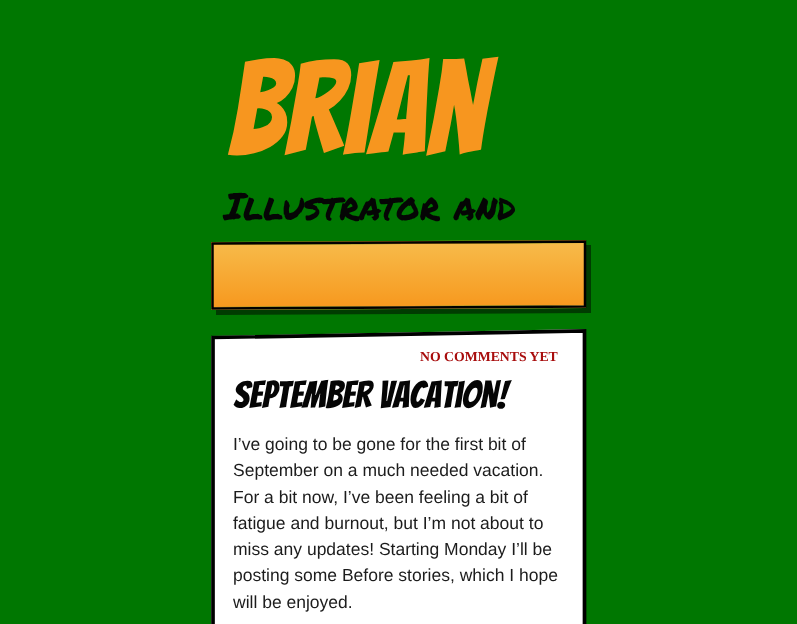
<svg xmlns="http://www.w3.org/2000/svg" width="797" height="624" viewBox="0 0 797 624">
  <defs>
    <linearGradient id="g1" gradientUnits="userSpaceOnUse" x1="398" y1="181" x2="399" y2="244"><stop offset="0" stop-color="rgb(247,186,73)"/><stop offset="1" stop-color="rgb(247,153,31)"/></linearGradient>
    <linearGradient id="g2" gradientUnits="userSpaceOnUse" x1="399" y1="244" x2="399" y2="306"><stop offset="0" stop-color="rgb(247,186,73)"/><stop offset="1" stop-color="rgb(247,153,31)"/></linearGradient>
    <linearGradient id="g3" gradientUnits="userSpaceOnUse" x1="399" y1="306" x2="399" y2="369"><stop offset="0" stop-color="rgb(247,186,73)"/><stop offset="1" stop-color="rgb(247,153,31)"/></linearGradient>
  </defs>
  <rect width="100%" height="100%" fill="rgb(0,119,1)"/>
  <text x="228" y="155" font-family="Bangers" font-size="131" fill="rgb(247,150,31)">Brian</text>
  <text x="224" y="220" font-family="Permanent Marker" font-size="37.5" fill="rgb(5,5,5)">Illustrator and</text>
  <path d="M216 310V315L591 313V245H586V308Z" fill="rgb(0,60,1)"/>
  <path d="M211 242L586 240V243L211 245Z" fill="url(#g1)"/>
  <path d="M211 307V245L586 243V305Z" fill="url(#g2)"/>
  <path d="M586 308L211 310V307L586 305Z" fill="url(#g3)"/>
  <path d="M212.5 243.5L585 241.5V306.5L212.5 308.5Z" fill="none" stroke="rgb(0,0,0)" stroke-width="2.5"/>
  <path d="M211 336L586 329V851L211 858Z" fill="rgb(255,255,255)"/>
  <path d="M213 337.5L584.5 331V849.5L213 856Z" fill="none" stroke="rgb(0,0,0)" stroke-width="3.7"/>
  <text x="420" y="361" font-family="Liberation Serif" font-size="13.75" font-weight="bold" fill="rgb(168,13,13)">NO COMMENTS YET</text>
  <text x="233" y="408" font-family="Bangers" font-size="37.5" fill="rgb(5,5,5)">September Vacation!</text>
  <g font-family="Liberation Sans" font-size="17.5" fill="rgb(28,28,28)">
    <text>
      <tspan x="233" y="450">I’ve going to be gone for the first bit of</tspan>
      <tspan x="233" y="476">September on a much needed vacation.</tspan>
      <tspan x="233" y="503">For a bit now, I’ve been feeling a bit of</tspan>
      <tspan x="233" y="529">fatigue and burnout, but I’m not about to</tspan>
      <tspan x="233" y="555">miss any updates! Starting Monday I’ll be</tspan>
      <tspan x="233" y="581">posting some Before stories, which I hope</tspan>
      <tspan x="233" y="608">will be enjoyed.</tspan>
    </text>
  </g>
</svg>
